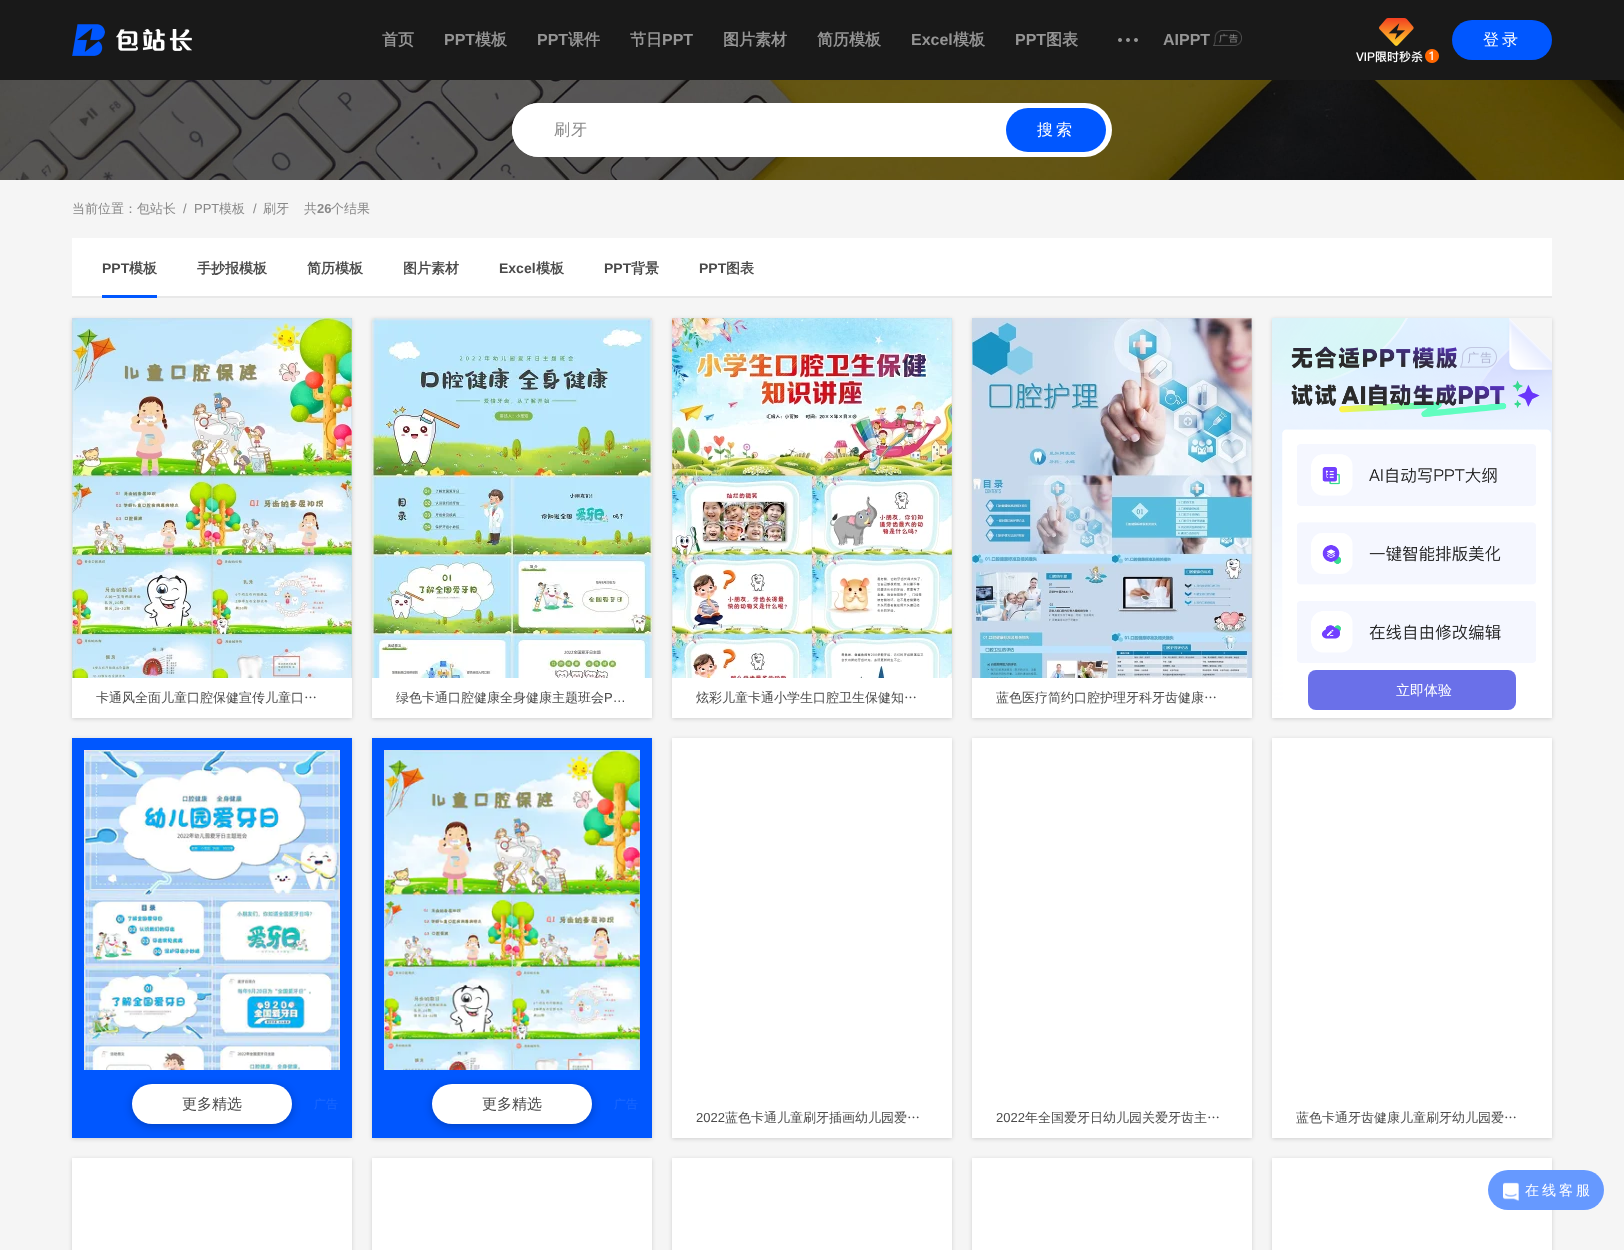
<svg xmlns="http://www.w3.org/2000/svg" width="1624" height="1250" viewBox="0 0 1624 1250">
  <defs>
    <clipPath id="clip1"><path d="M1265 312H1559V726H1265ZM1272 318H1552V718H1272Z" clip-rule="evenodd"/></clipPath>
  </defs>
  <rect width="100%" height="100%" fill="rgb(245,245,245)"/>
  <rect x="0" y="0" width="1624" height="80" fill="rgb(25,25,25)"/>
  <image x="72" y="24" width="120" height="32" href="pic1.png"/>
  <text x="382" y="45" font-family="WenQuanYi Zen Hei" font-size="16" font-weight="bold" fill="rgb(149,149,149)">首页</text>
  <text x="444" y="45" font-family="Liberation Sans" font-size="16" font-weight="bold" fill="rgb(149,149,149)">PPT</text>
  <text x="475" y="45" font-family="WenQuanYi Zen Hei" font-size="16" font-weight="bold" fill="rgb(149,149,149)">模板</text>
  <text x="537" y="45" font-family="Liberation Sans" font-size="16" font-weight="bold" fill="rgb(149,149,149)">PPT</text>
  <g font-family="WenQuanYi Zen Hei" font-size="16" font-weight="bold" fill="rgb(149,149,149)">
    <text x="568" y="45">课件</text>
    <text x="630" y="45">节日</text>
  </g>
  <text x="662" y="45" font-family="Liberation Sans" font-size="16" font-weight="bold" fill="rgb(149,149,149)">PPT</text>
  <g font-family="WenQuanYi Zen Hei" font-size="16" font-weight="bold" fill="rgb(149,149,149)">
    <text x="723" y="45">图片素材</text>
    <text x="817" y="45">简历模板</text>
  </g>
  <text x="911" y="45" font-family="Liberation Sans" font-size="16" font-weight="bold" fill="rgb(149,149,149)">Excel</text>
  <text x="953" y="45" font-family="WenQuanYi Zen Hei" font-size="16" font-weight="bold" fill="rgb(149,149,149)">模板</text>
  <text x="1015" y="45" font-family="Liberation Sans" font-size="16" font-weight="bold" fill="rgb(149,149,149)">PPT</text>
  <text x="1046" y="45" font-family="WenQuanYi Zen Hei" font-size="16" font-weight="bold" fill="rgb(149,149,149)">图表</text>
  <image x="1118" y="38" width="20" height="4" href="pic2.png"/>
  <text x="1163" y="45" font-family="Liberation Sans" font-size="16" font-weight="bold" fill="rgb(149,149,149)">AIPPT</text>
  <image x="1213" y="30" width="29" height="16" href="pic3.png"/>
  <image x="1356" y="18" width="83" height="45" href="pic4.png"/>
  <rect x="1452" y="20" width="100" height="40" rx="20" fill="rgb(0,87,255)"/>
  <text x="1483" y="45" font-family="WenQuanYi Zen Hei" font-size="16" font-weight="500" letter-spacing="3" fill="rgb(255,255,255)">登录</text>
  <image x="0" y="80" width="1624" height="100" href="pic5.png"/>
  <rect x="512" y="103" width="600" height="54" rx="27" fill="rgb(255,255,255)"/>
  <path d="M539 103H1002V157H539C524 157 512 145 512 130C512 115 524 103 539 103Z" fill="rgb(255,255,255)"/>
  <text x="554" y="135" font-family="WenQuanYi Zen Hei" font-size="16" font-weight="500" letter-spacing="1" fill="rgb(136,136,136)">刷牙</text>
  <rect x="1006" y="108" width="100" height="44" rx="22" fill="rgb(0,87,255)"/>
  <text x="1037" y="135" font-family="WenQuanYi Zen Hei" font-size="16" font-weight="500" letter-spacing="3" fill="rgb(255,255,255)">搜索</text>
  <text x="72" y="213" font-family="WenQuanYi Zen Hei" font-size="13" font-weight="500" fill="rgb(136,136,136)">当前位置：包站长</text>
  <g font-family="Liberation Sans" font-size="13" fill="rgb(136,136,136)">
    <text x="183" y="213">/</text>
    <text x="194" y="213">PPT</text>
  </g>
  <text x="219" y="213" font-family="WenQuanYi Zen Hei" font-size="13" font-weight="500" fill="rgb(136,136,136)">模板</text>
  <text x="253" y="213" font-family="Liberation Sans" font-size="13" fill="rgb(136,136,136)">/</text>
  <g font-family="WenQuanYi Zen Hei" font-size="13" font-weight="500" fill="rgb(136,136,136)">
    <text x="263" y="213">刷牙</text>
    <text x="304" y="213">共</text>
  </g>
  <text x="317" y="213" font-family="Liberation Sans" font-size="13" font-weight="bold" fill="rgb(136,136,136)">26</text>
  <text x="331" y="213" font-family="WenQuanYi Zen Hei" font-size="13" font-weight="500" fill="rgb(136,136,136)">个结果</text>
  <rect x="72" y="238" width="1480" height="58" fill="rgb(255,255,255)"/>
  <rect x="72" y="296" width="1480" height="2" fill="rgb(232,232,232)"/>
  <rect x="102" y="295" width="55" height="3" fill="rgb(0,87,255)"/>
  <text x="102" y="273" font-family="Liberation Sans" font-size="14" font-weight="bold" fill="rgb(74,74,74)">PPT</text>
  <g font-family="WenQuanYi Zen Hei" font-size="14" font-weight="bold" fill="rgb(74,74,74)">
    <text x="129" y="273">模板</text>
    <text x="197" y="273">手抄报模板</text>
    <text x="307" y="273">简历模板</text>
    <text x="403" y="273">图片素材</text>
  </g>
  <text x="499" y="273" font-family="Liberation Sans" font-size="14" font-weight="bold" fill="rgb(74,74,74)">Excel</text>
  <text x="536" y="273" font-family="WenQuanYi Zen Hei" font-size="14" font-weight="bold" fill="rgb(74,74,74)">模板</text>
  <text x="604" y="273" font-family="Liberation Sans" font-size="14" font-weight="bold" fill="rgb(74,74,74)">PPT</text>
  <text x="631" y="273" font-family="WenQuanYi Zen Hei" font-size="14" font-weight="bold" fill="rgb(74,74,74)">背景</text>
  <text x="699" y="273" font-family="Liberation Sans" font-size="14" font-weight="bold" fill="rgb(74,74,74)">PPT</text>
  <text x="726" y="273" font-family="WenQuanYi Zen Hei" font-size="14" font-weight="bold" fill="rgb(74,74,74)">图表</text>
  <rect x="72" y="319" width="280" height="400" fill="rgba(0,0,0,0.15)" filter="blur(2px)"/>
  <image x="72" y="318" width="280" height="360" href="pic6.png"/>
  <rect x="72" y="678" width="280" height="40" fill="rgb(255,255,255)"/>
  <text x="96" y="702" font-family="WenQuanYi Zen Hei" font-size="13" font-weight="500" fill="rgb(74,74,74)">卡通风全面儿童口腔保健宣传儿童口…</text>
  <rect x="372" y="319" width="280" height="400" fill="rgba(0,0,0,0.15)" filter="blur(2px)"/>
  <image x="372" y="318" width="280" height="360" href="pic7.png"/>
  <rect x="372" y="678" width="280" height="40" fill="rgb(255,255,255)"/>
  <text x="396" y="702" font-family="WenQuanYi Zen Hei" font-size="13" font-weight="500" fill="rgb(74,74,74)">绿色卡通口腔健康全身健康主题班会</text>
  <text x="604" y="702" font-family="Liberation Sans" font-size="13" fill="rgb(74,74,74)">P…</text>
  <rect x="672" y="319" width="280" height="400" fill="rgba(0,0,0,0.15)" filter="blur(2px)"/>
  <image x="672" y="318" width="280" height="360" href="pic8.png"/>
  <rect x="672" y="678" width="280" height="40" fill="rgb(255,255,255)"/>
  <text x="696" y="702" font-family="WenQuanYi Zen Hei" font-size="13" font-weight="500" fill="rgb(74,74,74)">炫彩儿童卡通小学生口腔卫生保健知…</text>
  <rect x="972" y="319" width="280" height="400" fill="rgba(0,0,0,0.15)" filter="blur(2px)"/>
  <image x="972" y="318" width="280" height="360" href="pic9.png"/>
  <rect x="972" y="678" width="280" height="40" fill="rgb(255,255,255)"/>
  <text x="996" y="702" font-family="WenQuanYi Zen Hei" font-size="13" font-weight="500" fill="rgb(74,74,74)">蓝色医疗简约口腔护理牙科牙齿健康…</text>
  <g clip-path="url(#clip1)">
    <rect x="1272" y="319" width="280" height="400" fill="rgba(0,0,0,0.15)" filter="blur(2px)"/>
  </g>
  <image x="1272" y="318" width="280" height="400" href="pic10.png"/>
  <rect x="1308" y="670" width="208" height="40" rx="8" fill="rgb(106,112,233)"/>
  <text x="1396" y="695" font-family="WenQuanYi Zen Hei" font-size="14" font-weight="500" fill="rgb(255,255,255)">立即体验</text>
  <rect x="72" y="739" width="280" height="400" fill="rgba(0,0,0,0.15)" filter="blur(2px)"/>
  <rect x="72" y="738" width="280" height="400" fill="rgb(0,87,255)"/>
  <image x="84" y="750" width="256" height="320" href="pic11.png"/>
  <rect x="132" y="1086" width="160" height="40" rx="20" fill="rgba(0,0,0,0.25)" filter="blur(4px)"/>
  <rect x="132" y="1084" width="160" height="40" rx="20" fill="rgb(255,255,255)"/>
  <text x="182" y="1109" font-family="WenQuanYi Zen Hei" font-size="15" font-weight="500" fill="rgb(74,74,74)">更多精选</text>
  <text x="314" y="1108" font-family="WenQuanYi Zen Hei" font-size="12" font-weight="500" fill="rgb(26,104,255)">广告</text>
  <rect x="372" y="739" width="280" height="400" fill="rgba(0,0,0,0.15)" filter="blur(2px)"/>
  <rect x="372" y="738" width="280" height="400" fill="rgb(0,87,255)"/>
  <image x="384" y="750" width="256" height="320" href="pic12.png"/>
  <rect x="432" y="1086" width="160" height="40" rx="20" fill="rgba(0,0,0,0.25)" filter="blur(4px)"/>
  <rect x="432" y="1084" width="160" height="40" rx="20" fill="rgb(255,255,255)"/>
  <text x="482" y="1109" font-family="WenQuanYi Zen Hei" font-size="15" font-weight="500" fill="rgb(74,74,74)">更多精选</text>
  <text x="614" y="1108" font-family="WenQuanYi Zen Hei" font-size="12" font-weight="500" fill="rgb(26,104,255)">广告</text>
  <rect x="672" y="739" width="280" height="400" fill="rgba(0,0,0,0.15)" filter="blur(2px)"/>
  <rect x="672" y="738" width="280" height="400" fill="rgb(255,255,255)"/>
  <text x="696" y="1122" font-family="Liberation Sans" font-size="13" fill="rgb(74,74,74)">2022</text>
  <text x="725" y="1122" font-family="WenQuanYi Zen Hei" font-size="13" font-weight="500" fill="rgb(74,74,74)">蓝色卡通儿童刷牙插画幼儿园爱…</text>
  <rect x="972" y="739" width="280" height="400" fill="rgba(0,0,0,0.15)" filter="blur(2px)"/>
  <rect x="972" y="738" width="280" height="400" fill="rgb(255,255,255)"/>
  <text x="996" y="1122" font-family="Liberation Sans" font-size="13" fill="rgb(74,74,74)">2022</text>
  <text x="1025" y="1122" font-family="WenQuanYi Zen Hei" font-size="13" font-weight="500" fill="rgb(74,74,74)">年全国爱牙日幼儿园关爱牙齿主…</text>
  <rect x="1272" y="739" width="280" height="400" fill="rgba(0,0,0,0.15)" filter="blur(2px)"/>
  <rect x="1272" y="738" width="280" height="400" fill="rgb(255,255,255)"/>
  <text x="1296" y="1122" font-family="WenQuanYi Zen Hei" font-size="13" font-weight="500" fill="rgb(74,74,74)">蓝色卡通牙齿健康儿童刷牙幼儿园爱…</text>
  <rect x="72" y="1159" width="280" height="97" fill="rgba(0,0,0,0.15)" filter="blur(2px)"/>
  <rect x="72" y="1158" width="280" height="92" fill="rgb(255,255,255)"/>
  <rect x="372" y="1159" width="280" height="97" fill="rgba(0,0,0,0.15)" filter="blur(2px)"/>
  <rect x="372" y="1158" width="280" height="92" fill="rgb(255,255,255)"/>
  <rect x="672" y="1159" width="280" height="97" fill="rgba(0,0,0,0.15)" filter="blur(2px)"/>
  <rect x="672" y="1158" width="280" height="92" fill="rgb(255,255,255)"/>
  <rect x="972" y="1159" width="280" height="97" fill="rgba(0,0,0,0.15)" filter="blur(2px)"/>
  <rect x="972" y="1158" width="280" height="92" fill="rgb(255,255,255)"/>
  <rect x="1272" y="1159" width="280" height="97" fill="rgba(0,0,0,0.15)" filter="blur(2px)"/>
  <rect x="1272" y="1158" width="280" height="92" fill="rgb(255,255,255)"/>
  <rect x="1488" y="1170" width="116" height="40" rx="20" fill="rgb(102,153,255)"/>
  <image x="1503" y="1182" width="16" height="19" href="pic13.png"/>
  <text x="1525" y="1195" font-family="WenQuanYi Zen Hei" font-size="14" font-weight="500" letter-spacing="3" fill="rgb(255,255,255)">在线客服</text>
</svg>
